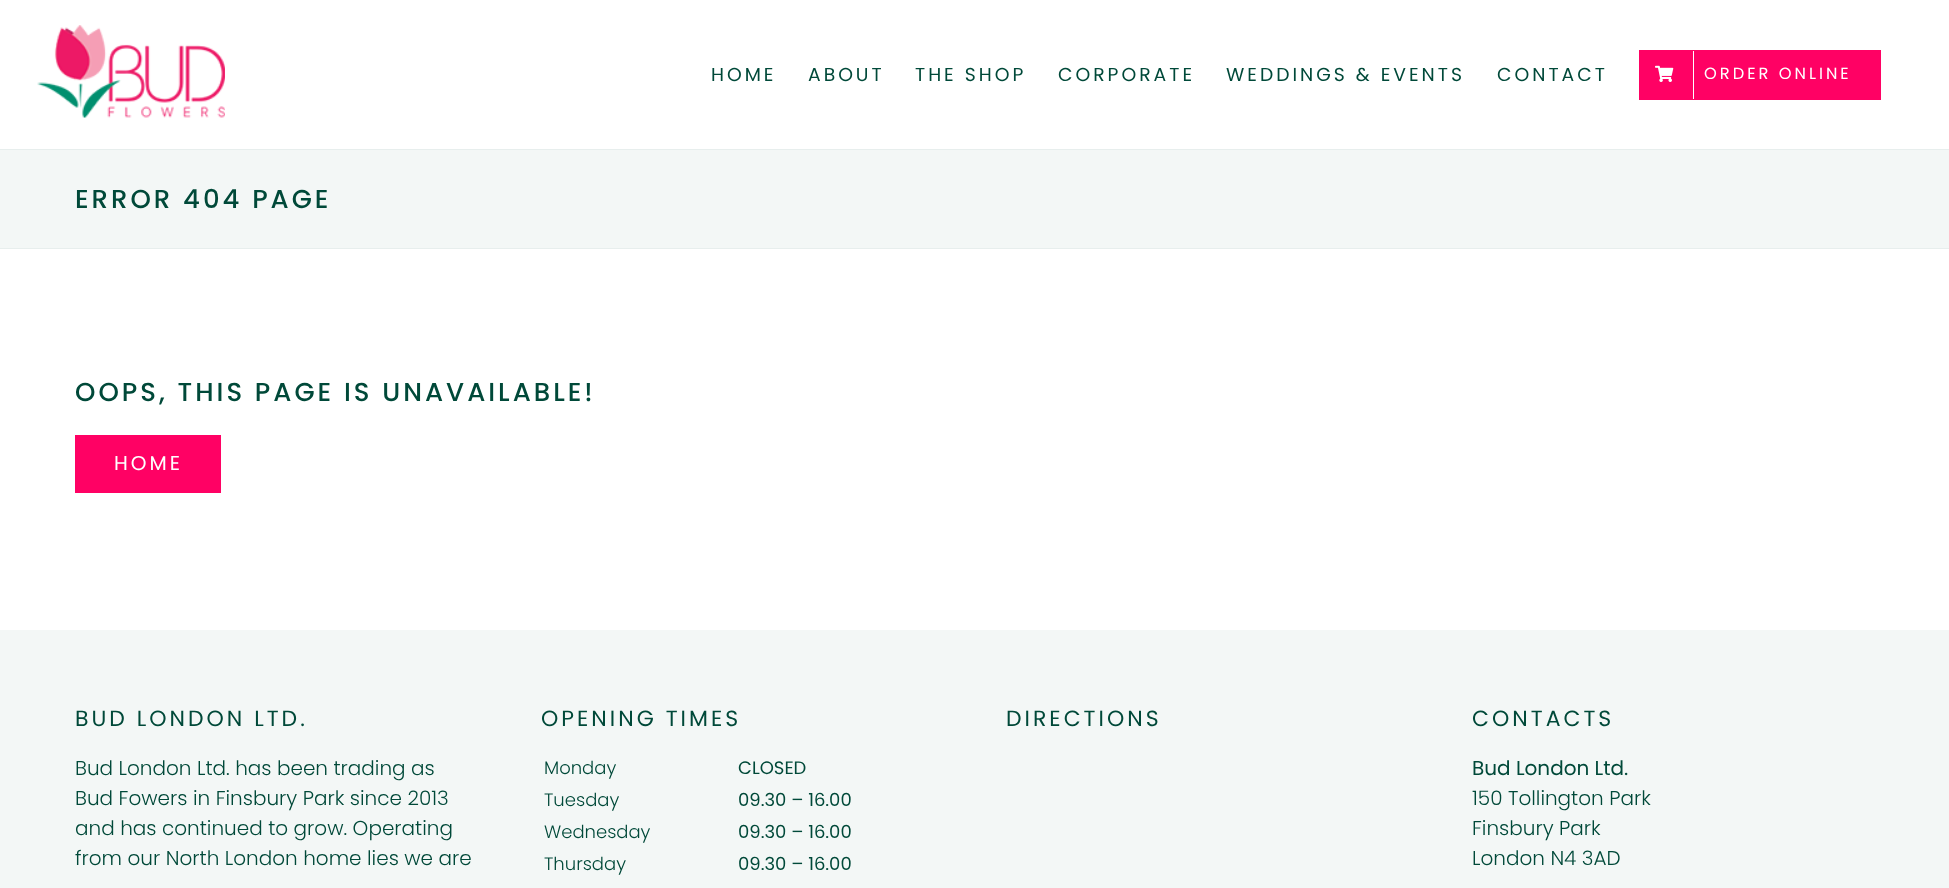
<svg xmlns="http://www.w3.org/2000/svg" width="1949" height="888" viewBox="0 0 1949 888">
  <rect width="100%" height="100%" fill="rgb(255,255,255)"/>
  <image x="37" y="25" width="188" height="93" href="pic1.png"/>
  <g font-family="Poppins" font-size="18.75" letter-spacing="3" fill="rgb(0,73,57)">
    <text x="711" y="81">HOME</text>
    <text x="808" y="81">ABOUT</text>
    <text x="915" y="81">THE SHOP</text>
    <text x="1058" y="81">CORPORATE</text>
    <text x="1226" y="81">WEDDINGS &amp; EVENTS</text>
    <text x="1497" y="81">CONTACT</text>
  </g>
  <rect x="1639" y="50" width="242" height="50" fill="rgb(255,1,100)"/>
  <rect x="1693" y="51" width="1" height="48" fill="rgb(255,255,255)"/>
  <image x="1655" y="65" width="19" height="17" href="pic2.png"/>
  <text x="1704" y="79" font-family="Poppins" font-size="16.25" letter-spacing="3" fill="rgb(255,255,255)">ORDER ONLINE</text>
  <rect x="0" y="150" width="1949" height="98" fill="rgb(243,247,246)"/>
  <rect x="0" y="149" width="1949" height="1" fill="rgb(231,238,237)"/>
  <rect x="0" y="248" width="1949" height="1" fill="rgb(231,238,237)"/>
  <g font-family="Poppins" font-size="26" font-weight="500" letter-spacing="3" fill="rgb(0,73,57)">
    <text x="75" y="208">ERROR 404 PAGE</text>
    <text x="75" y="401">OOPS, THIS PAGE IS UNAVAILABLE!</text>
  </g>
  <rect x="75" y="435" width="146" height="58" fill="rgb(255,1,100)"/>
  <text x="114" y="470" font-family="Poppins" font-size="20" letter-spacing="3" fill="rgb(255,255,255)">HOME</text>
  <rect x="0" y="630" width="1949" height="258" fill="rgb(243,247,246)"/>
  <text x="75" y="726" font-family="Poppins" font-size="22" letter-spacing="3" fill="rgb(0,73,57)">BUD LONDON LTD.</text>
  <g font-family="Poppins" font-size="20" font-weight="300" fill="rgb(0,73,57)">
    <text>
      <tspan x="75" y="775">Bud London Ltd. has been trading as</tspan>
      <tspan x="75" y="805">Bud Fowers in Finsbury Park since 2013</tspan>
      <tspan x="75" y="835">and has continued to grow. Operating</tspan>
      <tspan x="75" y="865">from our North London home lies we are</tspan>
    </text>
  </g>
  <text x="541" y="726" font-family="Poppins" font-size="22" letter-spacing="3" fill="rgb(0,73,57)">OPENING TIMES</text>
  <text x="544" y="774" font-family="Poppins" font-size="18" font-weight="300" fill="rgb(0,73,57)">Monday</text>
  <text x="738" y="774" font-family="Poppins" font-size="18" fill="rgb(0,73,57)">CLOSED</text>
  <text x="544" y="806" font-family="Poppins" font-size="18" font-weight="300" fill="rgb(0,73,57)">Tuesday</text>
  <text x="738" y="806" font-family="Poppins" font-size="18" fill="rgb(0,73,57)">09.30 – 16.00</text>
  <text x="544" y="838" font-family="Poppins" font-size="18" font-weight="300" fill="rgb(0,73,57)">Wednesday</text>
  <text x="738" y="838" font-family="Poppins" font-size="18" fill="rgb(0,73,57)">09.30 – 16.00</text>
  <text x="544" y="870" font-family="Poppins" font-size="18" font-weight="300" fill="rgb(0,73,57)">Thursday</text>
  <text x="738" y="870" font-family="Poppins" font-size="18" fill="rgb(0,73,57)">09.30 – 16.00</text>
  <g font-family="Poppins" font-size="22" letter-spacing="3" fill="rgb(0,73,57)">
    <text x="1006" y="726">DIRECTIONS</text>
    <text x="1472" y="726">CONTACTS</text>
  </g>
  <text x="1472" y="775" font-family="Poppins" font-size="20" fill="rgb(0,73,57)">Bud London Ltd.</text>
  <g font-family="Poppins" font-size="20" font-weight="300" fill="rgb(0,73,57)">
    <text>
      <tspan x="1472" y="805">150 Tollington Park</tspan>
      <tspan x="1472" y="835">Finsbury Park</tspan>
      <tspan x="1472" y="865">London N4 3AD</tspan>
    </text>
  </g>
</svg>
